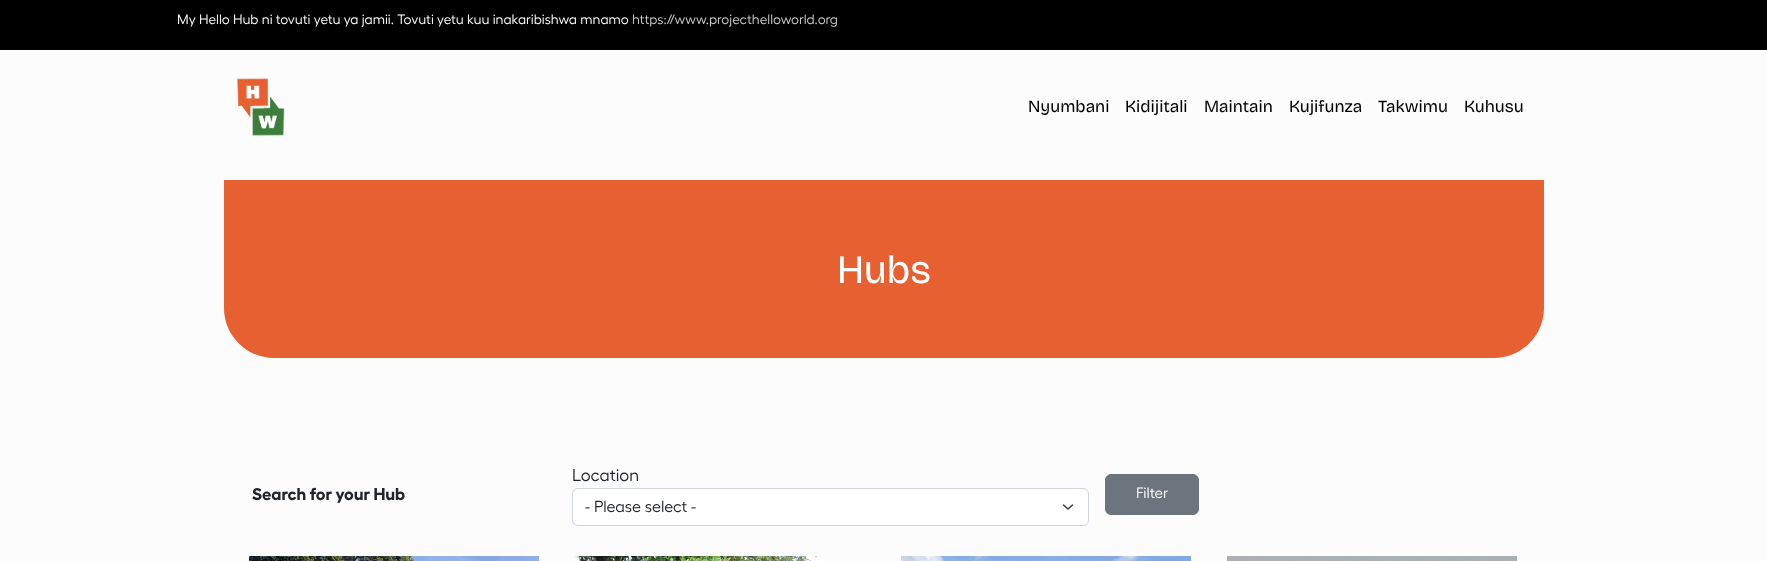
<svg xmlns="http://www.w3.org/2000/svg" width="1767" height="561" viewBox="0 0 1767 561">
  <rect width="100%" height="100%" fill="rgb(252,252,252)"/>
  <rect x="0" y="0" width="1767" height="50" fill="rgb(0,0,0)"/>
  <text x="177" y="24" font-family="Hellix" font-size="13.6" fill="rgb(255,255,255)">My Hello Hub ni tovuti yetu ya jamii. Tovuti yetu kuu inakaribishwa mnamo</text>
  <text x="632" y="24" font-family="Hellix" font-size="13.6" fill="rgb(204,204,204)">https://www.projecthelloworld.org</text>
  <image x="237" y="78" width="48" height="58" href="pic1.png"/>
  <g font-family="'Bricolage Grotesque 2'" font-size="17" fill="rgb(0,0,0)">
    <text x="1028" y="112">Nyumbani</text>
    <text x="1125" y="112">Kidijitali</text>
    <text x="1204" y="112">Maintain</text>
    <text x="1289" y="112">Kujifunza</text>
    <text x="1378" y="112">Takwimu</text>
    <text x="1464" y="112">Kuhusu</text>
  </g>
  <path d="M224 180H1544V308C1544 335.5 1521.5 358 1494 358H274C246.5 358 224 335.5 224 308Z" fill="rgb(231,96,49)"/>
  <text x="837" y="283" font-family="Bricolage Grotesque" font-size="40" fill="rgb(255,255,255)">Hubs</text>
  <text x="252" y="500" font-family="Hellix" font-size="17" font-weight="bold" fill="rgb(33,37,41)">Search for your Hub</text>
  <text x="572" y="481" font-family="Hellix" font-size="17" fill="rgb(33,37,41)">Location</text>
  <rect x="572" y="488" width="517" height="38" rx="6" fill="rgb(255,255,255)"/>
  <path d="M1063.5 505L1068 509L1072.5 505" fill="none" stroke="rgb(52,58,64)" stroke-width="1.5" stroke-linecap="round" stroke-linejoin="round"/>
  <rect x="572.5" y="488.5" width="516" height="37" rx="5.5" fill="none" stroke="rgb(206,212,218)"/>
  <text x="585" y="512" font-family="Hellix" font-size="16" fill="rgb(33,37,41)">- Please select -</text>
  <rect x="1105.5" y="474.5" width="93" height="40" rx="5.5" fill="rgb(108,117,125)" stroke="rgb(108,117,125)"/>
  <text x="1136" y="498" font-family="Hellix" font-size="15" fill="rgb(255,255,255)">Filter</text>
  <image x="249" y="556" width="290" height="5" href="pic2.png"/>
  <image x="575" y="556" width="242" height="5" href="pic3.png"/>
  <image x="901" y="556" width="290" height="5" href="pic4.png"/>
  <image x="1227" y="556" width="290" height="5" href="pic5.png"/>
</svg>
